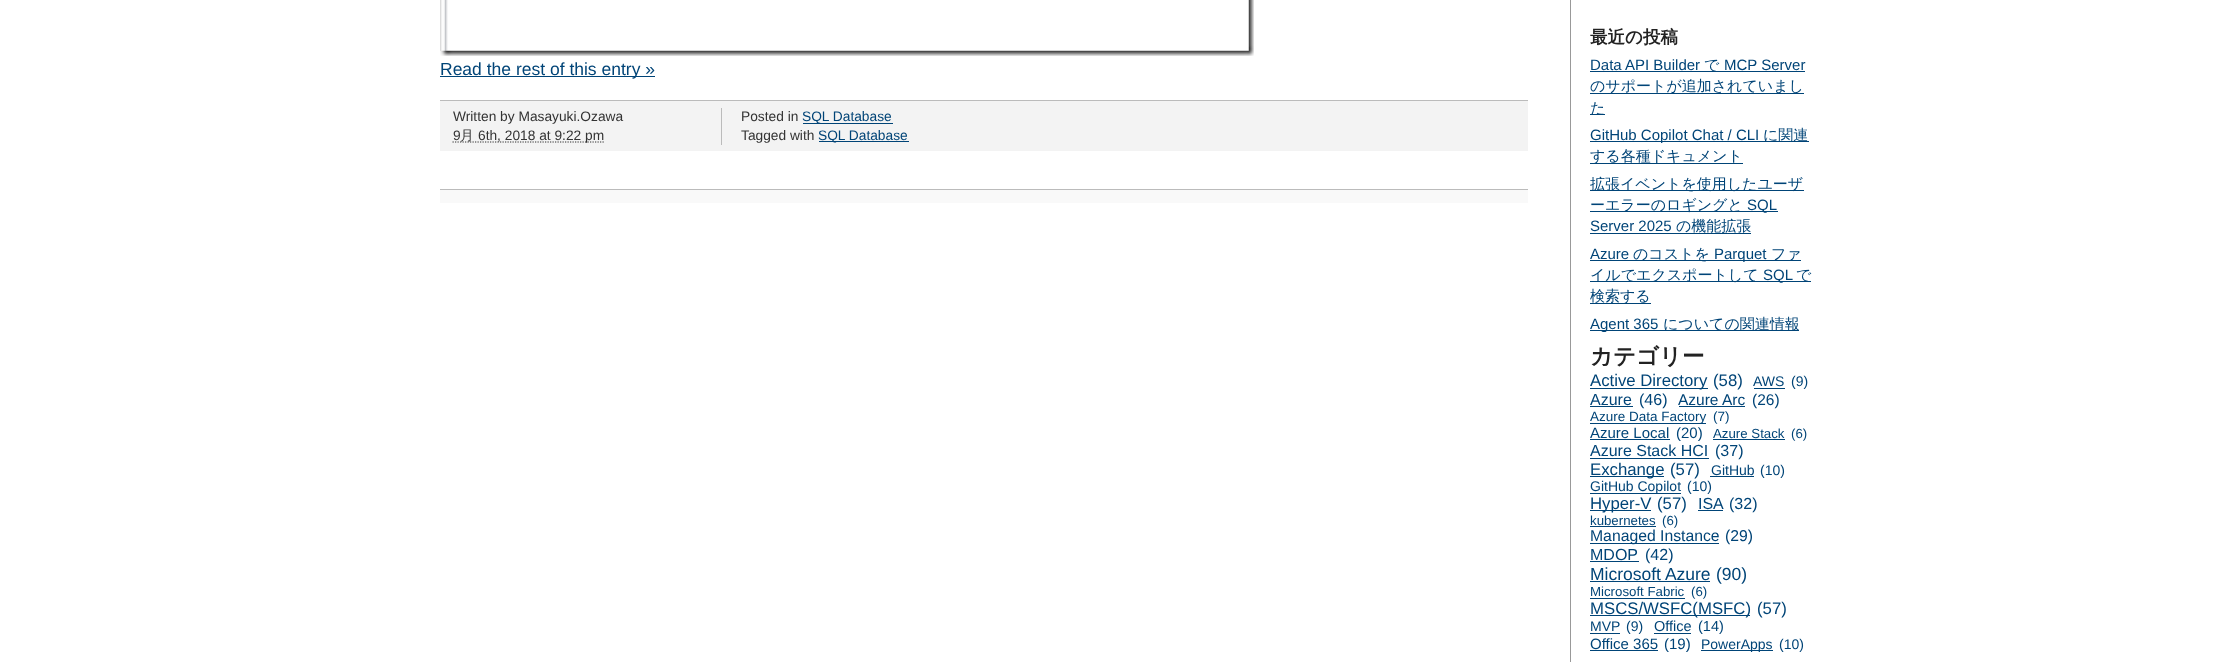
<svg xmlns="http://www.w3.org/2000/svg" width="2229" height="662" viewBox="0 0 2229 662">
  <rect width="100%" height="100%" fill="rgb(255,255,255)"/>
  <image x="440" y="0" width="814" height="56" href="pic1.png"/>
  <rect x="440" y="76" width="215" height="1" fill="rgb(0,68,119)"/>
  <text x="440" y="75" font-family="Liberation Sans" font-size="17.5" fill="rgb(0,68,119)">Read the rest of this entry »</text>
  <rect x="440" y="101" width="1088" height="50" fill="rgb(243,243,243)"/>
  <rect x="440" y="100" width="1088" height="1" fill="rgb(187,187,187)"/>
  <rect x="721" y="108" width="1" height="37" fill="rgb(187,187,187)"/>
  <g font-family="Liberation Sans" font-size="13.75" fill="rgb(51,51,51)">
    <text>
      <tspan x="453" y="121">Written by Masayuki.Ozawa</tspan>
      <tspan x="453" y="140">9</tspan>
    </text>
  </g>
  <path d="M452.5 142H604" fill="none" stroke="rgb(51,51,51)" stroke-width="1.2" stroke-dasharray="1.25 1.25"/>
  <text x="460" y="140" font-family="WenQuanYi Zen Hei" font-size="13.75" font-weight="500" fill="rgb(51,51,51)">月</text>
  <g font-family="Liberation Sans" font-size="13.75" fill="rgb(51,51,51)">
    <text x="478" y="140">6th, 2018 at 9:22 pm</text>
    <text x="741" y="121">Posted in</text>
  </g>
  <rect x="803" y="123" width="90" height="1" fill="rgb(0,68,119)"/>
  <text x="802" y="121" font-family="Liberation Sans" font-size="13.75" fill="rgb(0,68,119)">SQL Database</text>
  <text x="741" y="140" font-family="Liberation Sans" font-size="13.75" fill="rgb(51,51,51)">Tagged with</text>
  <rect x="819" y="141" width="90" height="1" fill="rgb(0,68,119)"/>
  <text x="818" y="140" font-family="Liberation Sans" font-size="13.75" fill="rgb(0,68,119)">SQL Database</text>
  <rect x="440" y="190" width="1088" height="13" fill="rgb(249,249,249)"/>
  <rect x="440" y="189" width="1088" height="1" fill="rgb(187,187,187)"/>
  <rect x="1570" y="0" width="1" height="662" fill="rgb(153,153,153)"/>
  <text x="1590" y="43" font-family="WenQuanYi Zen Hei" font-size="17.5" font-weight="bold" fill="rgb(34,34,34)">最近の投稿</text>
  <text x="1590" y="70" font-family="Liberation Sans" font-size="15" fill="rgb(0,68,119)">Data API Builder</text>
  <rect x="1590" y="71" width="215" height="1" fill="rgb(0,68,119)"/>
  <text x="1704" y="70" font-family="WenQuanYi Zen Hei" font-size="15" font-weight="500" fill="rgb(0,68,119)">で</text>
  <text x="1724" y="70" font-family="Liberation Sans" font-size="15" fill="rgb(0,68,119)">MCP Server</text>
  <rect x="1590" y="93" width="214" height="1" fill="rgb(0,68,119)"/>
  <text x="1590" y="91" font-family="WenQuanYi Zen Hei" font-size="15" font-weight="500" fill="rgb(0,68,119)">のサポートが追加されていまし</text>
  <rect x="1590" y="114" width="15" height="1" fill="rgb(0,68,119)"/>
  <text x="1590" y="113" font-family="WenQuanYi Zen Hei" font-size="15" font-weight="500" fill="rgb(0,68,119)">た</text>
  <rect x="1590" y="141" width="219" height="1" fill="rgb(0,68,119)"/>
  <text x="1590" y="140" font-family="Liberation Sans" font-size="15" fill="rgb(0,68,119)">GitHub Copilot Chat / CLI</text>
  <text x="1763" y="140" font-family="WenQuanYi Zen Hei" font-size="15" font-weight="500" fill="rgb(0,68,119)">に関連</text>
  <rect x="1590" y="163" width="153" height="1" fill="rgb(0,68,119)"/>
  <text x="1590" y="161" font-family="WenQuanYi Zen Hei" font-size="15" font-weight="500" fill="rgb(0,68,119)">する各種ドキュメント</text>
  <rect x="1590" y="190" width="214" height="1" fill="rgb(0,68,119)"/>
  <text x="1590" y="189" font-family="WenQuanYi Zen Hei" font-size="15" font-weight="500" fill="rgb(0,68,119)">拡張イベントを使用したユーザ</text>
  <rect x="1590" y="211" width="188" height="1" fill="rgb(0,68,119)"/>
  <text x="1590" y="210" font-family="WenQuanYi Zen Hei" font-size="15" font-weight="500" fill="rgb(0,68,119)">ーエラーのロギングと</text>
  <g font-family="Liberation Sans" font-size="15" fill="rgb(0,68,119)">
    <text x="1747" y="210">SQL</text>
    <text x="1590" y="231">Server 2025</text>
  </g>
  <rect x="1590" y="233" width="161" height="1" fill="rgb(0,68,119)"/>
  <text x="1676" y="231" font-family="WenQuanYi Zen Hei" font-size="15" font-weight="500" fill="rgb(0,68,119)">の機能拡張</text>
  <text x="1590" y="259" font-family="Liberation Sans" font-size="15" fill="rgb(0,68,119)">Azure</text>
  <rect x="1590" y="260" width="211" height="1" fill="rgb(0,68,119)"/>
  <text x="1633" y="259" font-family="WenQuanYi Zen Hei" font-size="15" font-weight="500" fill="rgb(0,68,119)">のコストを</text>
  <text x="1714" y="259" font-family="Liberation Sans" font-size="15" fill="rgb(0,68,119)">Parquet</text>
  <text x="1771" y="259" font-family="WenQuanYi Zen Hei" font-size="15" font-weight="500" fill="rgb(0,68,119)">ファ</text>
  <rect x="1590" y="281" width="221" height="1" fill="rgb(0,68,119)"/>
  <text x="1590" y="280" font-family="WenQuanYi Zen Hei" font-size="15" font-weight="500" fill="rgb(0,68,119)">イルでエクスポートして</text>
  <text x="1763" y="280" font-family="Liberation Sans" font-size="15" fill="rgb(0,68,119)">SQL</text>
  <text x="1796" y="280" font-family="WenQuanYi Zen Hei" font-size="15" font-weight="500" fill="rgb(0,68,119)">で</text>
  <rect x="1590" y="303" width="61" height="1" fill="rgb(0,68,119)"/>
  <text x="1590" y="301" font-family="WenQuanYi Zen Hei" font-size="15" font-weight="500" fill="rgb(0,68,119)">検索する</text>
  <rect x="1590" y="330" width="209" height="1" fill="rgb(0,68,119)"/>
  <text x="1590" y="329" font-family="Liberation Sans" font-size="15" fill="rgb(0,68,119)">Agent 365</text>
  <text x="1663" y="329" font-family="WenQuanYi Zen Hei" font-size="15" font-weight="500" fill="rgb(0,68,119)">についての関連情報</text>
  <text x="1590" y="364" font-family="WenQuanYi Zen Hei" font-size="22.5" font-weight="bold" fill="rgb(34,34,34)">カテゴリー</text>
  <rect x="1590" y="388" width="118" height="1" fill="rgb(0,68,119)"/>
  <g font-family="Liberation Sans" font-size="16.75" fill="rgb(0,68,119)">
    <text x="1590" y="386">Active Directory</text>
    <text x="1713" y="386">(58)</text>
  </g>
  <text x="1753" y="386" font-family="Liberation Sans" font-size="14" fill="rgb(0,68,119)">AWS</text>
  <rect x="1754" y="388" width="31" height="1" fill="rgb(0,68,119)"/>
  <text x="1791" y="386" font-family="Liberation Sans" font-size="14" fill="rgb(0,68,119)">(9)</text>
  <text x="1590" y="405" font-family="Liberation Sans" font-size="16" fill="rgb(0,68,119)">Azure</text>
  <rect x="1590" y="406" width="43" height="1" fill="rgb(0,68,119)"/>
  <text x="1639" y="405" font-family="Liberation Sans" font-size="16" fill="rgb(0,68,119)">(46)</text>
  <text x="1678" y="405" font-family="Liberation Sans" font-size="15.5" fill="rgb(0,68,119)">Azure Arc</text>
  <rect x="1679" y="406" width="66" height="1" fill="rgb(0,68,119)"/>
  <text x="1752" y="405" font-family="Liberation Sans" font-size="15.5" fill="rgb(0,68,119)">(26)</text>
  <rect x="1590" y="423" width="116" height="1" fill="rgb(0,68,119)"/>
  <g font-family="Liberation Sans" font-size="13.5" fill="rgb(0,68,119)">
    <text x="1590" y="421">Azure Data Factory</text>
    <text x="1713" y="421">(7)</text>
  </g>
  <text x="1590" y="438" font-family="Liberation Sans" font-size="15" fill="rgb(0,68,119)">Azure Local</text>
  <rect x="1590" y="439" width="80" height="1" fill="rgb(0,68,119)"/>
  <text x="1676" y="438" font-family="Liberation Sans" font-size="15" fill="rgb(0,68,119)">(20)</text>
  <text x="1713" y="438" font-family="Liberation Sans" font-size="13.25" fill="rgb(0,68,119)">Azure Stack</text>
  <rect x="1713" y="439" width="72" height="1" fill="rgb(0,68,119)"/>
  <text x="1791" y="438" font-family="Liberation Sans" font-size="13.25" fill="rgb(0,68,119)">(6)</text>
  <text x="1590" y="456" font-family="Liberation Sans" font-size="16" fill="rgb(0,68,119)">Azure Stack HCI</text>
  <rect x="1590" y="458" width="119" height="1" fill="rgb(0,68,119)"/>
  <text x="1715" y="456" font-family="Liberation Sans" font-size="16" fill="rgb(0,68,119)">(37)</text>
  <rect x="1590" y="476" width="74" height="1" fill="rgb(0,68,119)"/>
  <g font-family="Liberation Sans" font-size="16.75" fill="rgb(0,68,119)">
    <text x="1590" y="475">Exchange</text>
    <text x="1670" y="475">(57)</text>
  </g>
  <text x="1711" y="475" font-family="Liberation Sans" font-size="14" fill="rgb(0,68,119)">GitHub</text>
  <rect x="1710" y="476" width="44" height="1" fill="rgb(0,68,119)"/>
  <text x="1760" y="475" font-family="Liberation Sans" font-size="14" fill="rgb(0,68,119)">(10)</text>
  <rect x="1590" y="493" width="91" height="1" fill="rgb(0,68,119)"/>
  <g font-family="Liberation Sans" font-size="14" fill="rgb(0,68,119)">
    <text x="1590" y="491">GitHub Copilot</text>
    <text x="1687" y="491">(10)</text>
  </g>
  <rect x="1590" y="510" width="61" height="1" fill="rgb(0,68,119)"/>
  <g font-family="Liberation Sans" font-size="16.75" fill="rgb(0,68,119)">
    <text x="1590" y="509">Hyper-V</text>
    <text x="1657" y="509">(57)</text>
  </g>
  <text x="1698" y="509" font-family="Liberation Sans" font-size="16" fill="rgb(0,68,119)">ISA</text>
  <rect x="1698" y="510" width="25" height="1" fill="rgb(0,68,119)"/>
  <text x="1729" y="509" font-family="Liberation Sans" font-size="16" fill="rgb(0,68,119)">(32)</text>
  <text x="1590" y="525" font-family="Liberation Sans" font-size="13.25" fill="rgb(0,68,119)">kubernetes</text>
  <rect x="1590" y="526" width="66" height="1" fill="rgb(0,68,119)"/>
  <text x="1662" y="525" font-family="Liberation Sans" font-size="13.25" fill="rgb(0,68,119)">(6)</text>
  <rect x="1590" y="543" width="129" height="1" fill="rgb(0,68,119)"/>
  <g font-family="Liberation Sans" font-size="15.75" fill="rgb(0,68,119)">
    <text x="1590" y="541">Managed Instance</text>
    <text x="1725" y="541">(29)</text>
  </g>
  <text x="1590" y="560" font-family="Liberation Sans" font-size="16" fill="rgb(0,68,119)">MDOP</text>
  <rect x="1590" y="561" width="49" height="1" fill="rgb(0,68,119)"/>
  <text x="1645" y="560" font-family="Liberation Sans" font-size="16" fill="rgb(0,68,119)">(42)</text>
  <text x="1590" y="580" font-family="Liberation Sans" font-size="17.5" fill="rgb(0,68,119)">Microsoft Azure</text>
  <rect x="1590" y="581" width="120" height="1" fill="rgb(0,68,119)"/>
  <text x="1716" y="580" font-family="Liberation Sans" font-size="17.5" fill="rgb(0,68,119)">(90)</text>
  <text x="1590" y="596" font-family="Liberation Sans" font-size="13.25" fill="rgb(0,68,119)">Microsoft Fabric</text>
  <rect x="1590" y="598" width="95" height="1" fill="rgb(0,68,119)"/>
  <text x="1691" y="596" font-family="Liberation Sans" font-size="13.25" fill="rgb(0,68,119)">(6)</text>
  <rect x="1590" y="615" width="160" height="1" fill="rgb(0,68,119)"/>
  <g font-family="Liberation Sans" font-size="16.75" fill="rgb(0,68,119)">
    <text x="1590" y="614">MSCS/WSFC(MSFC)</text>
    <text x="1757" y="614">(57)</text>
  </g>
  <text x="1590" y="631" font-family="Liberation Sans" font-size="14" fill="rgb(0,68,119)">MVP</text>
  <rect x="1590" y="633" width="30" height="1" fill="rgb(0,68,119)"/>
  <text x="1626" y="631" font-family="Liberation Sans" font-size="14" fill="rgb(0,68,119)">(9)</text>
  <text x="1654" y="631" font-family="Liberation Sans" font-size="14.5" fill="rgb(0,68,119)">Office</text>
  <rect x="1654" y="633" width="37" height="1" fill="rgb(0,68,119)"/>
  <text x="1698" y="631" font-family="Liberation Sans" font-size="14.5" fill="rgb(0,68,119)">(14)</text>
  <text x="1590" y="649" font-family="Liberation Sans" font-size="15" fill="rgb(0,68,119)">Office 365</text>
  <rect x="1590" y="650" width="68" height="1" fill="rgb(0,68,119)"/>
  <text x="1664" y="649" font-family="Liberation Sans" font-size="15" fill="rgb(0,68,119)">(19)</text>
  <rect x="1701" y="650" width="72" height="1" fill="rgb(0,68,119)"/>
  <g font-family="Liberation Sans" font-size="14" fill="rgb(0,68,119)">
    <text x="1701" y="649">PowerApps</text>
    <text x="1779" y="649">(10)</text>
  </g>
</svg>
